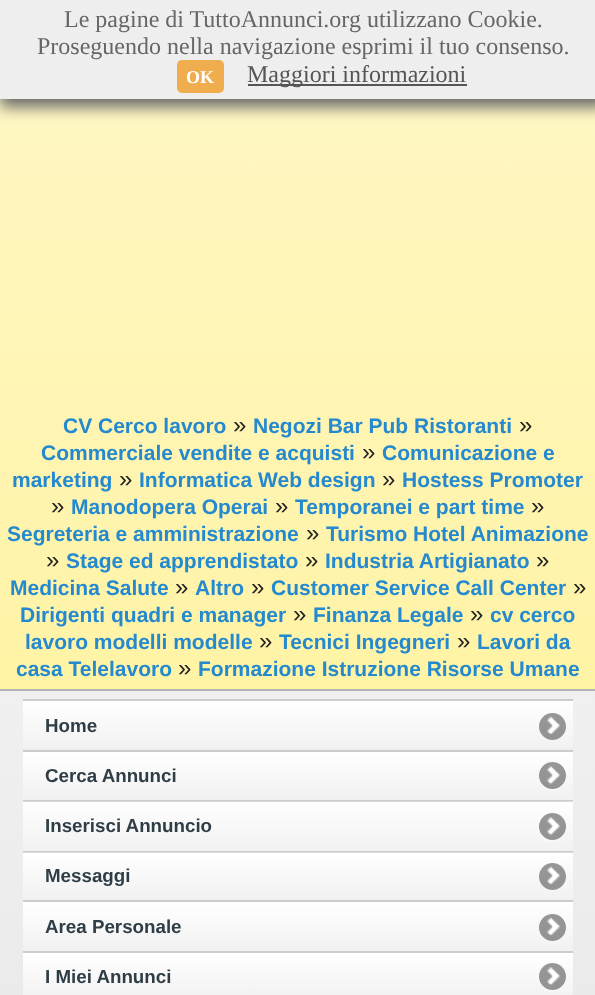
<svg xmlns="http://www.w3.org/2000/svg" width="595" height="995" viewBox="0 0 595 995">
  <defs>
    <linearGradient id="g1" gradientUnits="userSpaceOnUse" x1="298" y1="-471" x2="298" y2="689"><stop offset="0" stop-color="rgb(255,250,223)"/><stop offset="1" stop-color="rgb(255,243,165)"/></linearGradient>
    <linearGradient id="g2" gradientUnits="userSpaceOnUse" x1="298" y1="690" x2="298" y2="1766"><stop offset="0" stop-color="rgb(240,240,240)"/><stop offset="1" stop-color="rgb(221,221,221)"/></linearGradient>
    <linearGradient id="g3" gradientUnits="userSpaceOnUse" x1="298" y1="701" x2="298" y2="750"><stop offset="0" stop-color="rgb(255,255,255)"/><stop offset="1" stop-color="rgb(241,241,241)"/></linearGradient>
    <linearGradient id="g4" gradientUnits="userSpaceOnUse" x1="298" y1="752" x2="298" y2="800"><stop offset="0" stop-color="rgb(255,255,255)"/><stop offset="1" stop-color="rgb(241,241,241)"/></linearGradient>
    <linearGradient id="g5" gradientUnits="userSpaceOnUse" x1="298" y1="801" x2="298" y2="851"><stop offset="0" stop-color="rgb(255,255,255)"/><stop offset="1" stop-color="rgb(241,241,241)"/></linearGradient>
    <linearGradient id="g6" gradientUnits="userSpaceOnUse" x1="298" y1="801" x2="298" y2="851"><stop offset="0" stop-color="rgb(255,255,255)"/><stop offset="1" stop-color="rgb(245,245,245)"/></linearGradient>
    <linearGradient id="g7" gradientUnits="userSpaceOnUse" x1="298" y1="852" x2="298" y2="900"><stop offset="0" stop-color="rgb(255,255,255)"/><stop offset="1" stop-color="rgb(241,241,241)"/></linearGradient>
    <linearGradient id="g8" gradientUnits="userSpaceOnUse" x1="298" y1="852" x2="298" y2="900"><stop offset="0" stop-color="rgb(255,255,255)"/><stop offset="1" stop-color="rgb(245,245,245)"/></linearGradient>
    <linearGradient id="g9" gradientUnits="userSpaceOnUse" x1="298" y1="902" x2="298" y2="951"><stop offset="0" stop-color="rgb(255,255,255)"/><stop offset="1" stop-color="rgb(241,241,241)"/></linearGradient>
    <linearGradient id="g10" gradientUnits="userSpaceOnUse" x1="298" y1="953" x2="298" y2="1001"><stop offset="0" stop-color="rgb(255,255,255)"/><stop offset="1" stop-color="rgb(241,241,241)"/></linearGradient>
  </defs>
  <rect width="100%" height="100%" fill="rgb(255,255,255)"/>
  <rect x="0" y="99" width="595" height="590" fill="url(#g1)"/>
  <rect x="0" y="8" width="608" height="99" fill="rgb(102,102,102)" filter="blur(7.5px)"/>
  <rect x="0" y="0" width="595" height="99" fill="rgb(238,238,238)"/>
  <g font-family="Liberation Serif" font-size="24" fill="rgb(102,102,102)">
    <text x="64" y="27">Le pagine di TuttoAnnunci.org utilizzano Cookie.</text>
    <text x="37" y="54">Proseguendo nella navigazione esprimi il tuo consenso.</text>
  </g>
  <rect x="177" y="60" width="47" height="33" rx="5" fill="rgb(240,173,78)"/>
  <text x="186" y="83" font-family="Liberation Serif" font-size="18" font-weight="bold" fill="rgb(255,255,255)">OK</text>
  <rect x="248" y="84" width="219" height="2" fill="rgb(85,85,85)"/>
  <text x="247" y="82" font-family="Liberation Serif" font-size="24" fill="rgb(85,85,85)">Maggiori informazioni</text>
  <text x="63" y="433" font-family="Liberation Sans" font-size="21" font-weight="bold" fill="rgb(36,137,206)">CV Cerco lavoro</text>
  <text x="233" y="433" font-family="Liberation Sans" font-size="24" fill="rgb(34,34,34)">»</text>
  <text x="253" y="433" font-family="Liberation Sans" font-size="21" font-weight="bold" fill="rgb(36,137,206)">Negozi Bar Pub Ristoranti</text>
  <text x="519" y="433" font-family="Liberation Sans" font-size="24" fill="rgb(34,34,34)">»</text>
  <text x="41" y="460" font-family="Liberation Sans" font-size="21" font-weight="bold" fill="rgb(36,137,206)">Commerciale vendite e acquisti</text>
  <text x="362" y="460" font-family="Liberation Sans" font-size="24" fill="rgb(34,34,34)">»</text>
  <g font-family="Liberation Sans" font-size="21" font-weight="bold" fill="rgb(36,137,206)">
    <text x="382" y="460">Comunicazione e</text>
    <text x="12" y="487">marketing</text>
  </g>
  <text x="119" y="487" font-family="Liberation Sans" font-size="24" fill="rgb(34,34,34)">»</text>
  <text x="139" y="487" font-family="Liberation Sans" font-size="21" font-weight="bold" fill="rgb(36,137,206)">Informatica Web design</text>
  <text x="382" y="487" font-family="Liberation Sans" font-size="24" fill="rgb(34,34,34)">»</text>
  <text x="402" y="487" font-family="Liberation Sans" font-size="21" font-weight="bold" fill="rgb(36,137,206)">Hostess Promoter</text>
  <text x="51" y="514" font-family="Liberation Sans" font-size="24" fill="rgb(34,34,34)">»</text>
  <text x="71" y="514" font-family="Liberation Sans" font-size="21" font-weight="bold" fill="rgb(36,137,206)">Manodopera Operai</text>
  <text x="275" y="514" font-family="Liberation Sans" font-size="24" fill="rgb(34,34,34)">»</text>
  <text x="295" y="514" font-family="Liberation Sans" font-size="21" font-weight="bold" fill="rgb(36,137,206)">Temporanei e part time</text>
  <text x="531" y="514" font-family="Liberation Sans" font-size="24" fill="rgb(34,34,34)">»</text>
  <text x="7" y="541" font-family="Liberation Sans" font-size="21" font-weight="bold" fill="rgb(36,137,206)">Segreteria e amministrazione</text>
  <text x="306" y="541" font-family="Liberation Sans" font-size="24" fill="rgb(34,34,34)">»</text>
  <text x="326" y="541" font-family="Liberation Sans" font-size="21" font-weight="bold" fill="rgb(36,137,206)">Turismo Hotel Animazione</text>
  <text x="46" y="568" font-family="Liberation Sans" font-size="24" fill="rgb(34,34,34)">»</text>
  <text x="66" y="568" font-family="Liberation Sans" font-size="21" font-weight="bold" fill="rgb(36,137,206)">Stage ed apprendistato</text>
  <text x="305" y="568" font-family="Liberation Sans" font-size="24" fill="rgb(34,34,34)">»</text>
  <text x="325" y="568" font-family="Liberation Sans" font-size="21" font-weight="bold" fill="rgb(36,137,206)">Industria Artigianato</text>
  <text x="536" y="568" font-family="Liberation Sans" font-size="24" fill="rgb(34,34,34)">»</text>
  <text x="10" y="595" font-family="Liberation Sans" font-size="21" font-weight="bold" fill="rgb(36,137,206)">Medicina Salute</text>
  <text x="175" y="595" font-family="Liberation Sans" font-size="24" fill="rgb(34,34,34)">»</text>
  <text x="195" y="595" font-family="Liberation Sans" font-size="21" font-weight="bold" fill="rgb(36,137,206)">Altro</text>
  <text x="251" y="595" font-family="Liberation Sans" font-size="24" fill="rgb(34,34,34)">»</text>
  <text x="271" y="595" font-family="Liberation Sans" font-size="21" font-weight="bold" fill="rgb(36,137,206)">Customer Service Call Center</text>
  <text x="573" y="595" font-family="Liberation Sans" font-size="24" fill="rgb(34,34,34)">»</text>
  <text x="20" y="622" font-family="Liberation Sans" font-size="21" font-weight="bold" fill="rgb(36,137,206)">Dirigenti quadri e manager</text>
  <text x="293" y="622" font-family="Liberation Sans" font-size="24" fill="rgb(34,34,34)">»</text>
  <text x="313" y="622" font-family="Liberation Sans" font-size="21" font-weight="bold" fill="rgb(36,137,206)">Finanza Legale</text>
  <text x="470" y="622" font-family="Liberation Sans" font-size="24" fill="rgb(34,34,34)">»</text>
  <g font-family="Liberation Sans" font-size="21" font-weight="bold" fill="rgb(36,137,206)">
    <text x="490" y="622">cv cerco</text>
    <text x="25" y="649">lavoro modelli modelle</text>
  </g>
  <text x="259" y="649" font-family="Liberation Sans" font-size="24" fill="rgb(34,34,34)">»</text>
  <text x="279" y="649" font-family="Liberation Sans" font-size="21" font-weight="bold" fill="rgb(36,137,206)">Tecnici Ingegneri</text>
  <text x="457" y="649" font-family="Liberation Sans" font-size="24" fill="rgb(34,34,34)">»</text>
  <g font-family="Liberation Sans" font-size="21" font-weight="bold" fill="rgb(36,137,206)">
    <text x="477" y="649">Lavori da</text>
    <text x="16" y="676">casa Telelavoro</text>
  </g>
  <text x="178" y="676" font-family="Liberation Sans" font-size="24" fill="rgb(34,34,34)">»</text>
  <text x="198" y="676" font-family="Liberation Sans" font-size="21" font-weight="bold" fill="rgb(36,137,206)">Formazione Istruzione Risorse Umane</text>
  <rect x="0" y="691" width="595" height="304" fill="url(#g2)"/>
  <rect x="0" y="689" width="595" height="2" fill="rgb(179,179,179)"/>
  <rect x="23" y="701" width="550" height="47" fill="url(#g3)"/>
  <rect x="23" y="699" width="550" height="2" fill="rgb(204,204,204)"/>
  <text x="45" y="732" font-family="Liberation Sans" font-size="18.75" font-weight="bold" fill="rgb(47,62,70)">Home</text>
  <path d="M539.5 731C540 734 542 736.5 544 738C555 746.5 570 735 565 722.5C569.5 738.5 545.5 746.5 539.5 731Z" fill="rgba(255,255,255,0.4)"/>
  <circle cx="552.5" cy="726.5" r="13.5" fill="rgba(0,0,0,0.4)"/>
  <image x="547" y="716" width="13" height="19" href="pic1.png"/>
  <rect x="23" y="752" width="550" height="48" fill="url(#g4)"/>
  <rect x="23" y="750" width="550" height="2" fill="rgb(204,204,204)"/>
  <text x="45" y="782" font-family="Liberation Sans" font-size="18.75" font-weight="bold" fill="rgb(47,62,70)">Cerca Annunci</text>
  <path d="M539 780C539.5 783 541.5 785.5 543.5 788C554 796.5 569.5 786 565.5 773C568 789.5 544.5 795.5 539 780Z" fill="rgba(255,255,255,0.4)"/>
  <circle cx="552.5" cy="775.5" r="13.5" fill="rgba(0,0,0,0.4)"/>
  <image x="547" y="766" width="13" height="19" href="pic2.png"/>
  <rect x="23" y="803" width="550" height="48" fill="url(#g5)"/>
  <rect x="23" y="802" width="550" height="1" fill="url(#g6)"/>
  <rect x="23" y="800" width="550" height="1" fill="rgb(204,204,204)"/>
  <rect x="23" y="801" width="550" height="1" fill="rgb(219,219,219)"/>
  <text x="45" y="832" font-family="Liberation Sans" font-size="18.75" font-weight="bold" fill="rgb(47,62,70)">Inserisci Annuncio</text>
  <path d="M539 831C539.5 834 541.5 836.5 543.5 839C554 847.5 569.5 837 565.5 824C568 840.5 544.5 846.5 539 831Z" fill="rgba(255,255,255,0.4)"/>
  <circle cx="552.5" cy="826.5" r="13.5" fill="rgba(0,0,0,0.4)"/>
  <image x="547" y="817" width="13" height="19" href="pic3.png"/>
  <rect x="23" y="854" width="550" height="46" fill="url(#g7)"/>
  <rect x="23" y="853" width="550" height="1" fill="url(#g8)"/>
  <rect x="23" y="851" width="550" height="1" fill="rgb(204,204,204)"/>
  <rect x="23" y="852" width="550" height="1" fill="rgb(219,219,219)"/>
  <text x="45" y="882" font-family="Liberation Sans" font-size="18.75" font-weight="bold" fill="rgb(47,62,70)">Messaggi</text>
  <path d="M539.5 881C540 884 542 886.5 544 888C555 896.5 570 885 565 872.5C569.5 888.5 545.5 896.5 539.5 881Z" fill="rgba(255,255,255,0.4)"/>
  <circle cx="552.5" cy="876.5" r="13.5" fill="rgba(0,0,0,0.4)"/>
  <image x="547" y="866" width="13" height="19" href="pic4.png"/>
  <rect x="23" y="902" width="550" height="49" fill="url(#g9)"/>
  <rect x="23" y="900" width="550" height="2" fill="rgb(204,204,204)"/>
  <text x="45" y="933" font-family="Liberation Sans" font-size="18.75" font-weight="bold" fill="rgb(47,62,70)">Area Personale</text>
  <path d="M539.5 932C540 935 542 937.5 544 939C555 947.5 570 936 565 923.5C569.5 939.5 545.5 947.5 539.5 932Z" fill="rgba(255,255,255,0.4)"/>
  <circle cx="552.5" cy="927.5" r="13.5" fill="rgba(0,0,0,0.4)"/>
  <image x="547" y="917" width="13" height="19" href="pic1.png"/>
  <rect x="23" y="953" width="550" height="42" fill="url(#g10)"/>
  <rect x="23" y="951" width="550" height="2" fill="rgb(204,204,204)"/>
  <text x="45" y="983" font-family="Liberation Sans" font-size="18.75" font-weight="bold" fill="rgb(47,62,70)">I Miei Annunci</text>
  <path d="M539 981C539.5 984 541.5 986.5 543.5 989C554 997.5 569.5 987 565.5 974C568 990.5 544.5 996.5 539 981Z" fill="rgba(255,255,255,0.4)"/>
  <circle cx="552.5" cy="976.5" r="13.5" fill="rgba(0,0,0,0.4)"/>
  <image x="547" y="967" width="13" height="19" href="pic2.png"/>
</svg>
